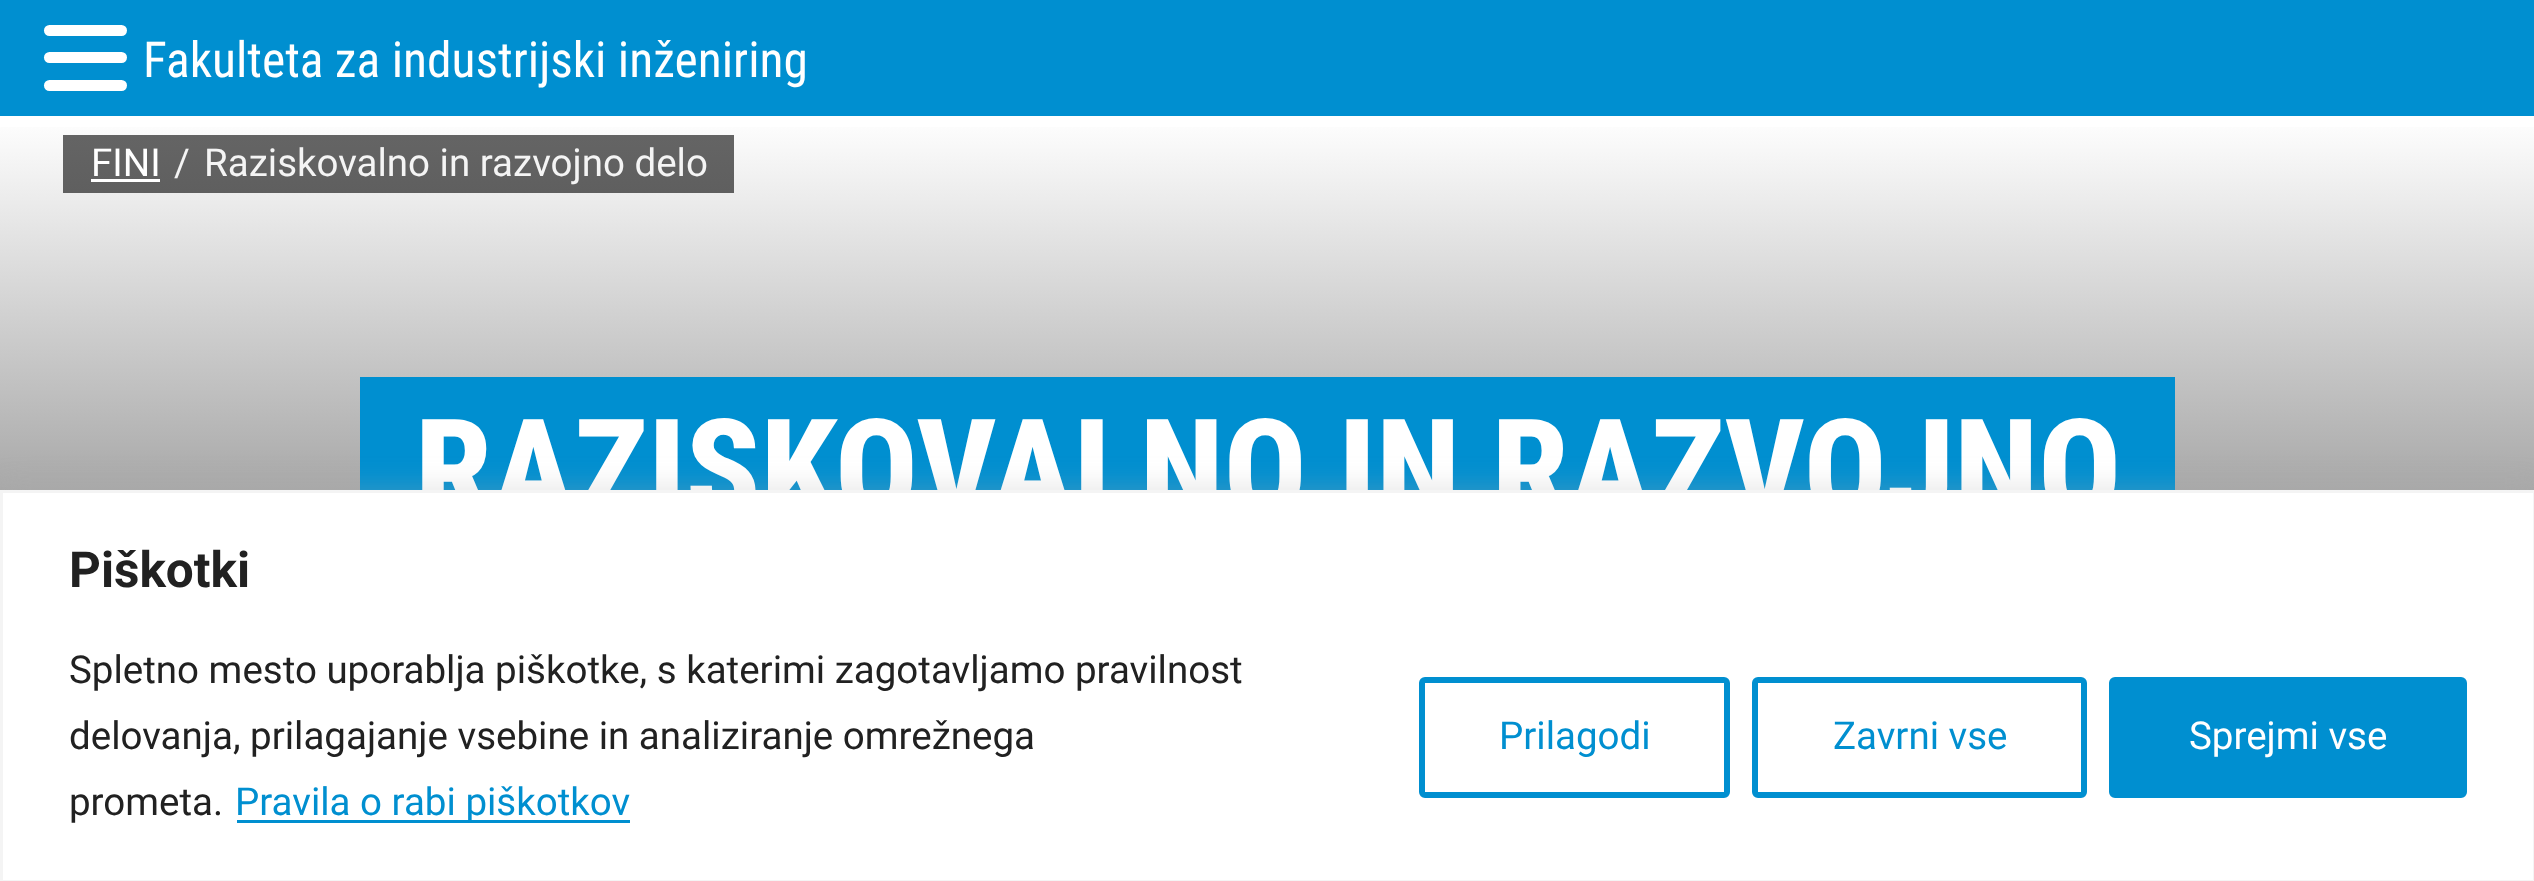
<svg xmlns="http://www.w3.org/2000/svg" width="2534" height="881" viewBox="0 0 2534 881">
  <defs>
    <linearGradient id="g1" gradientUnits="userSpaceOnUse" x1="1268" y1="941" x2="1268" y2="116"><stop offset="0" stop-color="rgb(64,64,64)"/><stop offset="1" stop-color="rgb(255,255,255)"/></linearGradient>
    <linearGradient id="g2" gradientUnits="userSpaceOnUse" x1="1268" y1="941" x2="1268" y2="116"><stop offset="0" stop-color="rgb(26,26,26)"/><stop offset="1" stop-color="rgb(102,102,102)"/></linearGradient>
  </defs>
  <rect width="100%" height="100%" fill="rgb(255,255,255)"/>
  <rect x="0" y="0" width="2534" height="116" fill="rgb(0,143,208)"/>
  <rect x="44" y="25" width="83" height="11" rx="5.5" fill="rgb(255,255,255)"/>
  <rect x="44" y="52" width="83" height="11" rx="5.5" fill="rgb(255,255,255)"/>
  <rect x="44" y="80" width="83" height="11" rx="5.5" fill="rgb(255,255,255)"/>
  <text x="143" y="77" font-family="Roboto Condensed" font-size="49.5" fill="rgb(255,255,255)">Fakulteta za industrijski inženiring</text>
  <rect x="0" y="127" width="2534" height="363" fill="url(#g1)"/>
  <rect x="63" y="135" width="671" height="58" fill="url(#g2)"/>
  <text x="91" y="176" font-family="Roboto" font-size="38.5" fill="rgb(255,255,255)">FINI</text>
  <rect x="91" y="179" width="69" height="3" fill="rgb(255,255,255)"/>
  <g font-family="Roboto" font-size="38.5" fill="rgb(244,244,244)">
    <text x="174" y="176">/</text>
    <text x="204" y="176">Raziskovalno in razvojno delo</text>
  </g>
  <rect x="415" y="377" width="1705" height="113" fill="rgb(0,143,208)"/>
  <text x="415" y="517" font-family="Roboto Condensed" font-size="137.5" font-weight="800" fill="rgb(255,255,255)">RAZISKOVALNO IN RAZVOJNO</text>
  <path d="M360 377V564H2065H415V377Z" fill="rgb(0,143,208)"/>
  <path d="M470 564H2175V377H2120V564Z" fill="rgb(0,143,208)"/>
  <rect x="0" y="487" width="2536" height="393" fill="rgba(172,171,171,0.3)" filter="blur(14px)"/>
  <rect x="1.5" y="491.5" width="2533" height="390" fill="rgb(255,255,255)" stroke="rgb(244,244,244)" stroke-width="3"/>
  <text x="69" y="587" font-family="Roboto" font-size="49.5" font-weight="bold" fill="rgb(33,33,33)">Piškotki</text>
  <g font-family="Roboto" font-size="38.5" fill="rgb(33,33,33)">
    <text>
      <tspan x="69" y="683">Spletno mesto uporablja piškotke, s katerimi zagotavljamo pravilnost</tspan>
      <tspan x="69" y="749">delovanja, prilagajanje vsebine in analiziranje omrežnega</tspan>
      <tspan x="69" y="815">prometa.</tspan>
    </text>
  </g>
  <rect x="237" y="820" width="393" height="3" fill="rgb(0,143,208)"/>
  <text x="235" y="815" font-family="Roboto" font-size="38.5" fill="rgb(0,143,208)">Pravila o rabi piškotkov</text>
  <rect x="1422" y="680" width="305" height="115" rx="3" fill="none" stroke="rgb(0,143,208)" stroke-width="6"/>
  <text x="1499" y="749" font-family="Roboto" font-size="38.5" fill="rgb(0,143,208)">Prilagodi</text>
  <rect x="1755" y="680" width="329" height="115" rx="3" fill="none" stroke="rgb(0,143,208)" stroke-width="6"/>
  <text x="1833" y="749" font-family="Roboto" font-size="38.5" fill="rgb(0,143,208)">Zavrni vse</text>
  <rect x="2112" y="680" width="352" height="115" rx="3" fill="rgb(0,143,208)" stroke="rgb(0,143,208)" stroke-width="6"/>
  <text x="2189" y="749" font-family="Roboto" font-size="38.5" fill="rgb(255,255,255)">Sprejmi vse</text>
</svg>
